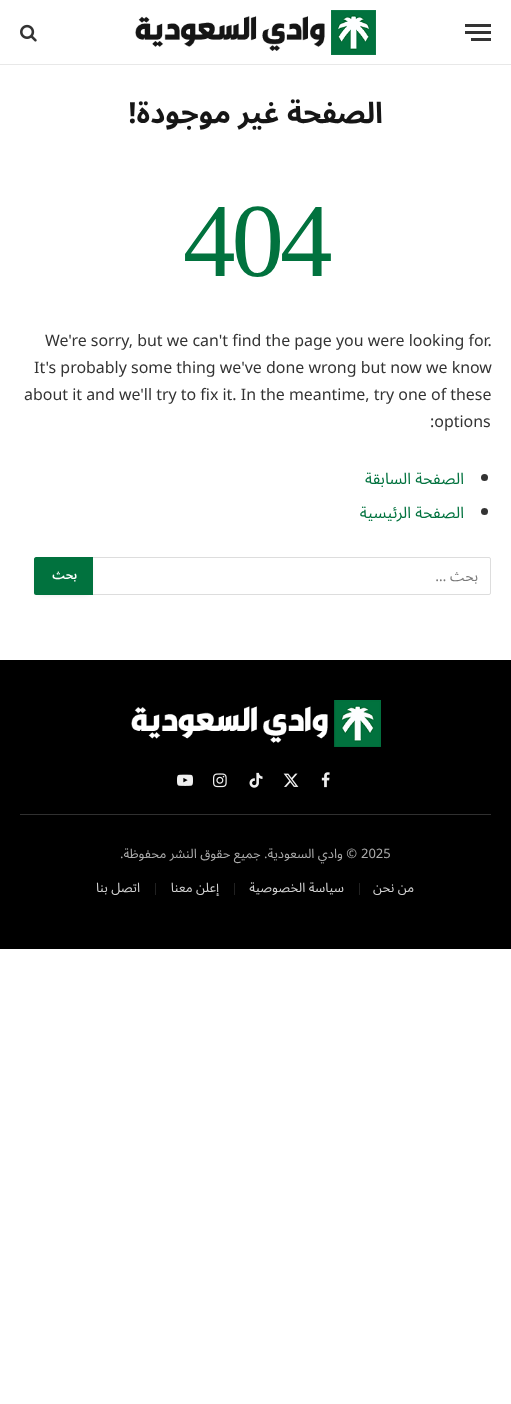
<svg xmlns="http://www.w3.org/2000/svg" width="511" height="1404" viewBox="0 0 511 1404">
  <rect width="100%" height="100%" fill="rgb(255,255,255)"/>
  <rect x="0" y="64" width="511" height="1" fill="rgb(232,232,232)"/>
  <image x="20" y="24" width="17" height="18" href="pic1.png"/>
  <image x="135" y="10" width="241" height="45" href="pic2.png"/>
  <rect x="471" y="38" width="20" height="3" fill="rgb(51,51,51)"/>
  <rect x="465" y="24" width="26" height="3" fill="rgb(51,51,51)"/>
  <rect x="465" y="31" width="26" height="3" fill="rgb(51,51,51)"/>
  <text x="383" y="123" font-family="Noto Sans Arabic" font-size="29" font-weight="bold" direction="rtl" fill="rgb(22,22,22)">الصفحة غير موجودة!</text>
  <text x="183" y="276" font-family="Liberation Serif" font-size="105" letter-spacing="-4" fill="rgb(1,114,62)">404</text>
  <g font-family="Noto Sans Arabic" font-size="15.95" fill="rgb(51,51,51)">
    <text x="45" y="346">We're sorry, but we can't find the page you were looking for.</text>
    <text x="34" y="373">It's probably some thing we've done wrong but now we know</text>
    <text x="24" y="400">about it and we'll try to fix it. In the meantime, try one of these</text>
    <text x="430" y="427">:options</text>
  </g>
  <text x="464" y="484" font-family="Noto Sans Arabic" font-size="15.95" direction="rtl" fill="rgb(1,114,62)">الصفحة السابقة</text>
  <circle cx="484.5" cy="477.5" r="3.5" fill="rgb(51,51,51)"/>
  <text x="464" y="518" font-family="Noto Sans Arabic" font-size="15.95" direction="rtl" fill="rgb(1,114,62)">الصفحة الرئيسية</text>
  <circle cx="484.5" cy="511.5" r="3.5" fill="rgb(51,51,51)"/>
  <rect x="91.5" y="557.5" width="399" height="37" rx="1.5" fill="none" stroke="rgb(221,221,221)"/>
  <rect x="38" y="563" width="51" height="30" fill="rgba(0,0,0,0.16)" filter="blur(3.5px)"/>
  <path d="M36 557H93V595H36C35 595 34 594 34 593V559C34 558 35 557 36 557Z" fill="rgb(1,114,62)"/>
  <text x="77" y="579" font-family="Noto Sans Arabic" font-size="12" font-weight="600" letter-spacing="0.5" direction="rtl" fill="rgb(255,255,255)">بحث</text>
  <text x="478" y="581" font-family="Noto Sans Arabic" font-size="14" direction="rtl" fill="rgb(119,119,119)">بحث …</text>
  <rect x="0" y="660" width="511" height="289" fill="rgb(0,0,0)"/>
  <image x="131" y="700" width="250" height="47" href="pic3.png"/>
  <image x="177" y="774" width="16" height="12" href="pic4.png"/>
  <image x="213" y="773" width="14" height="15" href="pic5.png"/>
  <image x="249" y="772" width="14" height="16" href="pic6.png"/>
  <image x="283" y="773" width="16" height="14" href="pic7.png"/>
  <image x="321" y="772" width="9" height="16" href="pic8.png"/>
  <rect x="20" y="814" width="471" height="1" fill="rgb(48,48,48)"/>
  <text x="357" y="858" font-family="Noto Sans Arabic" font-size="13" direction="rtl" fill="rgb(171,171,171)">© وادي السعودية. جميع حقوق النشر محفوظة.</text>
  <text x="361" y="858" font-family="Noto Sans Arabic" font-size="13" fill="rgb(171,171,171)">2025</text>
  <text x="140" y="892" font-family="Noto Sans Arabic" font-size="13" direction="rtl" fill="rgb(211,211,211)">اتصل بنا</text>
  <rect x="155" y="883" width="1" height="12" fill="rgb(33,33,33)"/>
  <text x="219" y="892" font-family="Noto Sans Arabic" font-size="13" direction="rtl" fill="rgb(211,211,211)">إعلن معنا</text>
  <rect x="234" y="883" width="1" height="12" fill="rgb(33,33,33)"/>
  <text x="344" y="892" font-family="Noto Sans Arabic" font-size="13" direction="rtl" fill="rgb(211,211,211)">سياسة الخصوصية</text>
  <rect x="359" y="883" width="1" height="12" fill="rgb(33,33,33)"/>
  <text x="414" y="892" font-family="Noto Sans Arabic" font-size="13" direction="rtl" fill="rgb(211,211,211)">من نحن</text>
</svg>
